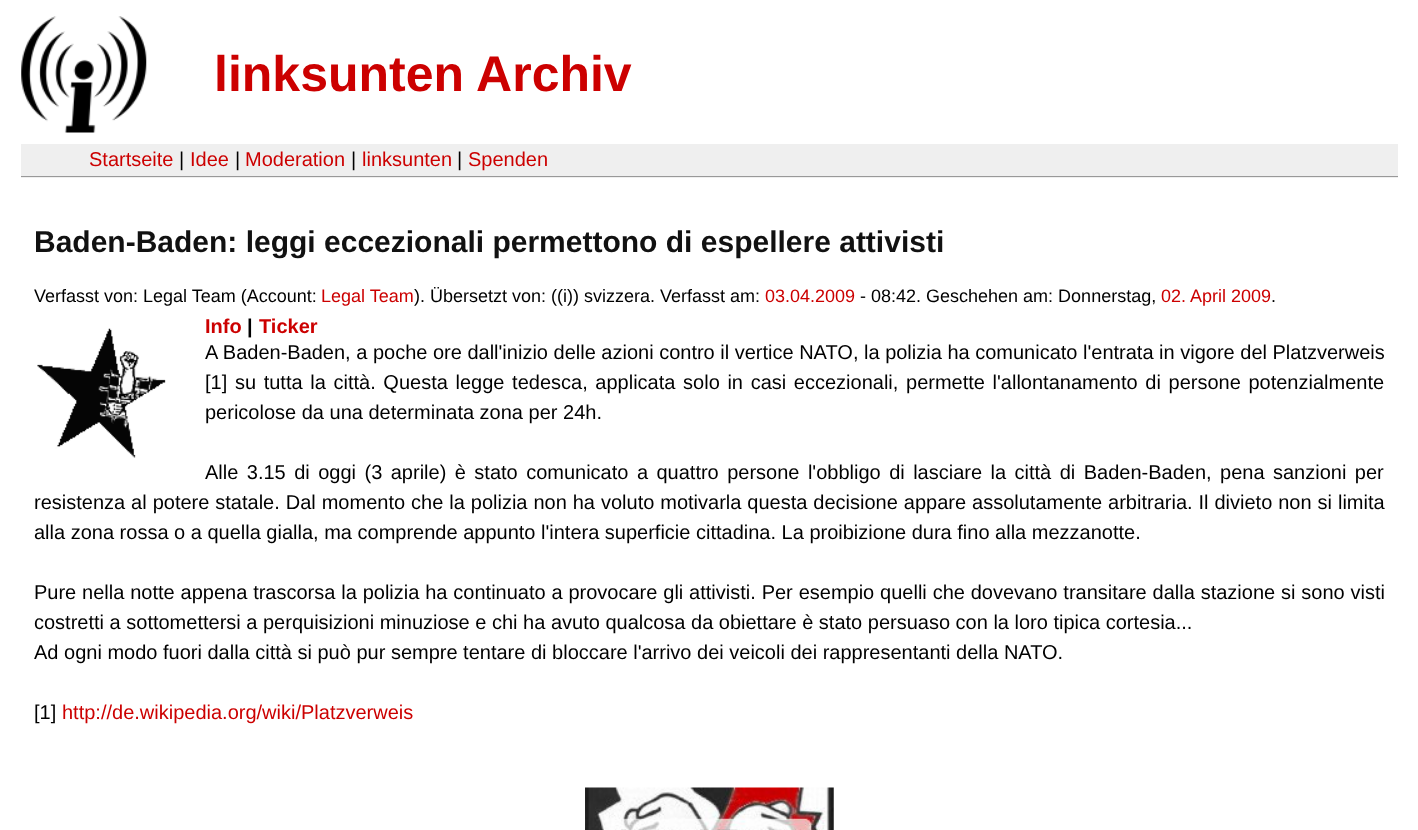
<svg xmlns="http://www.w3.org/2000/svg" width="1418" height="830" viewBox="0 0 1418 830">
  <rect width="100%" height="100%" fill="rgb(255,255,255)"/>
  <image x="21" y="16" width="126" height="117" href="pic1.png"/>
  <text x="214" y="91" font-family="Liberation Sans" font-size="50" font-weight="bold" fill="rgb(204,0,0)">linksunten Archiv</text>
  <rect x="21" y="144" width="1377" height="34" fill="rgb(239,239,239)"/>
  <rect x="21" y="176" width="1377" height="1" fill="rgb(153,153,153)"/>
  <text x="89" y="166" font-family="Liberation Sans" font-size="20" fill="rgb(204,0,0)">Startseite</text>
  <text x="179" y="166" font-family="Liberation Sans" font-size="20" fill="rgb(0,0,0)">|</text>
  <text x="190" y="166" font-family="Liberation Sans" font-size="20" fill="rgb(204,0,0)">Idee</text>
  <text x="235" y="166" font-family="Liberation Sans" font-size="20" fill="rgb(0,0,0)">|</text>
  <text x="245" y="166" font-family="Liberation Sans" font-size="20" fill="rgb(204,0,0)">Moderation</text>
  <text x="351" y="166" font-family="Liberation Sans" font-size="20" fill="rgb(0,0,0)">|</text>
  <text x="362" y="166" font-family="Liberation Sans" font-size="20" fill="rgb(204,0,0)">linksunten</text>
  <text x="457" y="166" font-family="Liberation Sans" font-size="20" fill="rgb(0,0,0)">|</text>
  <text x="468" y="166" font-family="Liberation Sans" font-size="20" fill="rgb(204,0,0)">Spenden</text>
  <text x="34" y="252" font-family="Liberation Sans" font-size="30" font-weight="bold" fill="rgb(17,17,17)">Baden-Baden: leggi eccezionali permettono di espellere attivisti</text>
  <text x="34" y="302" font-family="Liberation Sans" font-size="18" fill="rgb(0,0,0)">Verfasst von: Legal Team (Account:</text>
  <text x="321" y="302" font-family="Liberation Sans" font-size="18" fill="rgb(204,0,0)">Legal Team</text>
  <text x="414" y="302" font-family="Liberation Sans" font-size="18" fill="rgb(0,0,0)">). Übersetzt von: ((i)) svizzera. Verfasst am:</text>
  <text x="765" y="302" font-family="Liberation Sans" font-size="18" fill="rgb(204,0,0)">03.04.2009</text>
  <text x="860" y="302" font-family="Liberation Sans" font-size="18" fill="rgb(0,0,0)">- 08:42. Geschehen am: Donnerstag,</text>
  <text x="1161" y="302" font-family="Liberation Sans" font-size="18" fill="rgb(204,0,0)">02. April 2009</text>
  <text x="1271" y="302" font-family="Liberation Sans" font-size="18" fill="rgb(0,0,0)">.</text>
  <text x="205" y="333" font-family="Liberation Sans" font-size="20" font-weight="bold" fill="rgb(204,0,0)">Info</text>
  <text x="247" y="333" font-family="Liberation Sans" font-size="20" font-weight="bold" fill="rgb(0,0,0)">|</text>
  <text x="259" y="333" font-family="Liberation Sans" font-size="20" font-weight="bold" fill="rgb(204,0,0)">Ticker</text>
  <image x="37" y="328" width="129" height="130" href="pic2.png"/>
  <g font-family="Liberation Sans" font-size="20" fill="rgb(0,0,0)">
    <text>
      <tspan x="205" y="359">A Baden-Baden, a poche ore dall'inizio delle azioni contro il vertice NATO, la polizia ha comunicato l'entrata in vigore del Platzverweis</tspan>
      <tspan x="205" y="389" word-spacing="2.1">[1] su tutta la città. Questa legge tedesca, applicata solo in casi eccezionali, permette l'allontanamento di persone potenzialmente</tspan>
      <tspan x="205" y="419">pericolose da una determinata zona per 24h.</tspan>
    </text>
    <text x="205" y="479" word-spacing="2.9">Alle 3.15 di oggi (3 aprile) è stato comunicato a quattro persone l'obbligo di lasciare la città di Baden-Baden, pena sanzioni per</text>
    <text>
      <tspan x="34" y="509" word-spacing="0.4">resistenza al potere statale. Dal momento che la polizia non ha voluto motivarla questa decisione appare assolutamente arbitraria. Il divieto non si limita</tspan>
      <tspan x="34" y="539">alla zona rossa o a quella gialla, ma comprende appunto l'intera superficie cittadina. La proibizione dura fino alla mezzanotte.</tspan>
    </text>
    <text>
      <tspan x="34" y="599" word-spacing="0.3">Pure nella notte appena trascorsa la polizia ha continuato a provocare gli attivisti. Per esempio quelli che dovevano transitare dalla stazione si sono visti</tspan>
      <tspan x="34" y="629">costretti a sottomettersi a perquisizioni minuziose e chi ha avuto qualcosa da obiettare è stato persuaso con la loro tipica cortesia...</tspan>
      <tspan x="34" y="659">Ad ogni modo fuori dalla città si può pur sempre tentare di bloccare l'arrivo dei veicoli dei rappresentanti della NATO.</tspan>
    </text>
    <text x="34" y="719">[1]</text>
  </g>
  <text x="62" y="719" font-family="Liberation Sans" font-size="20" fill="rgb(204,0,0)">http://de.wikipedia.org/wiki/Platzverweis</text>
  <image x="585" y="787" width="249" height="43" href="pic3.png"/>
</svg>
